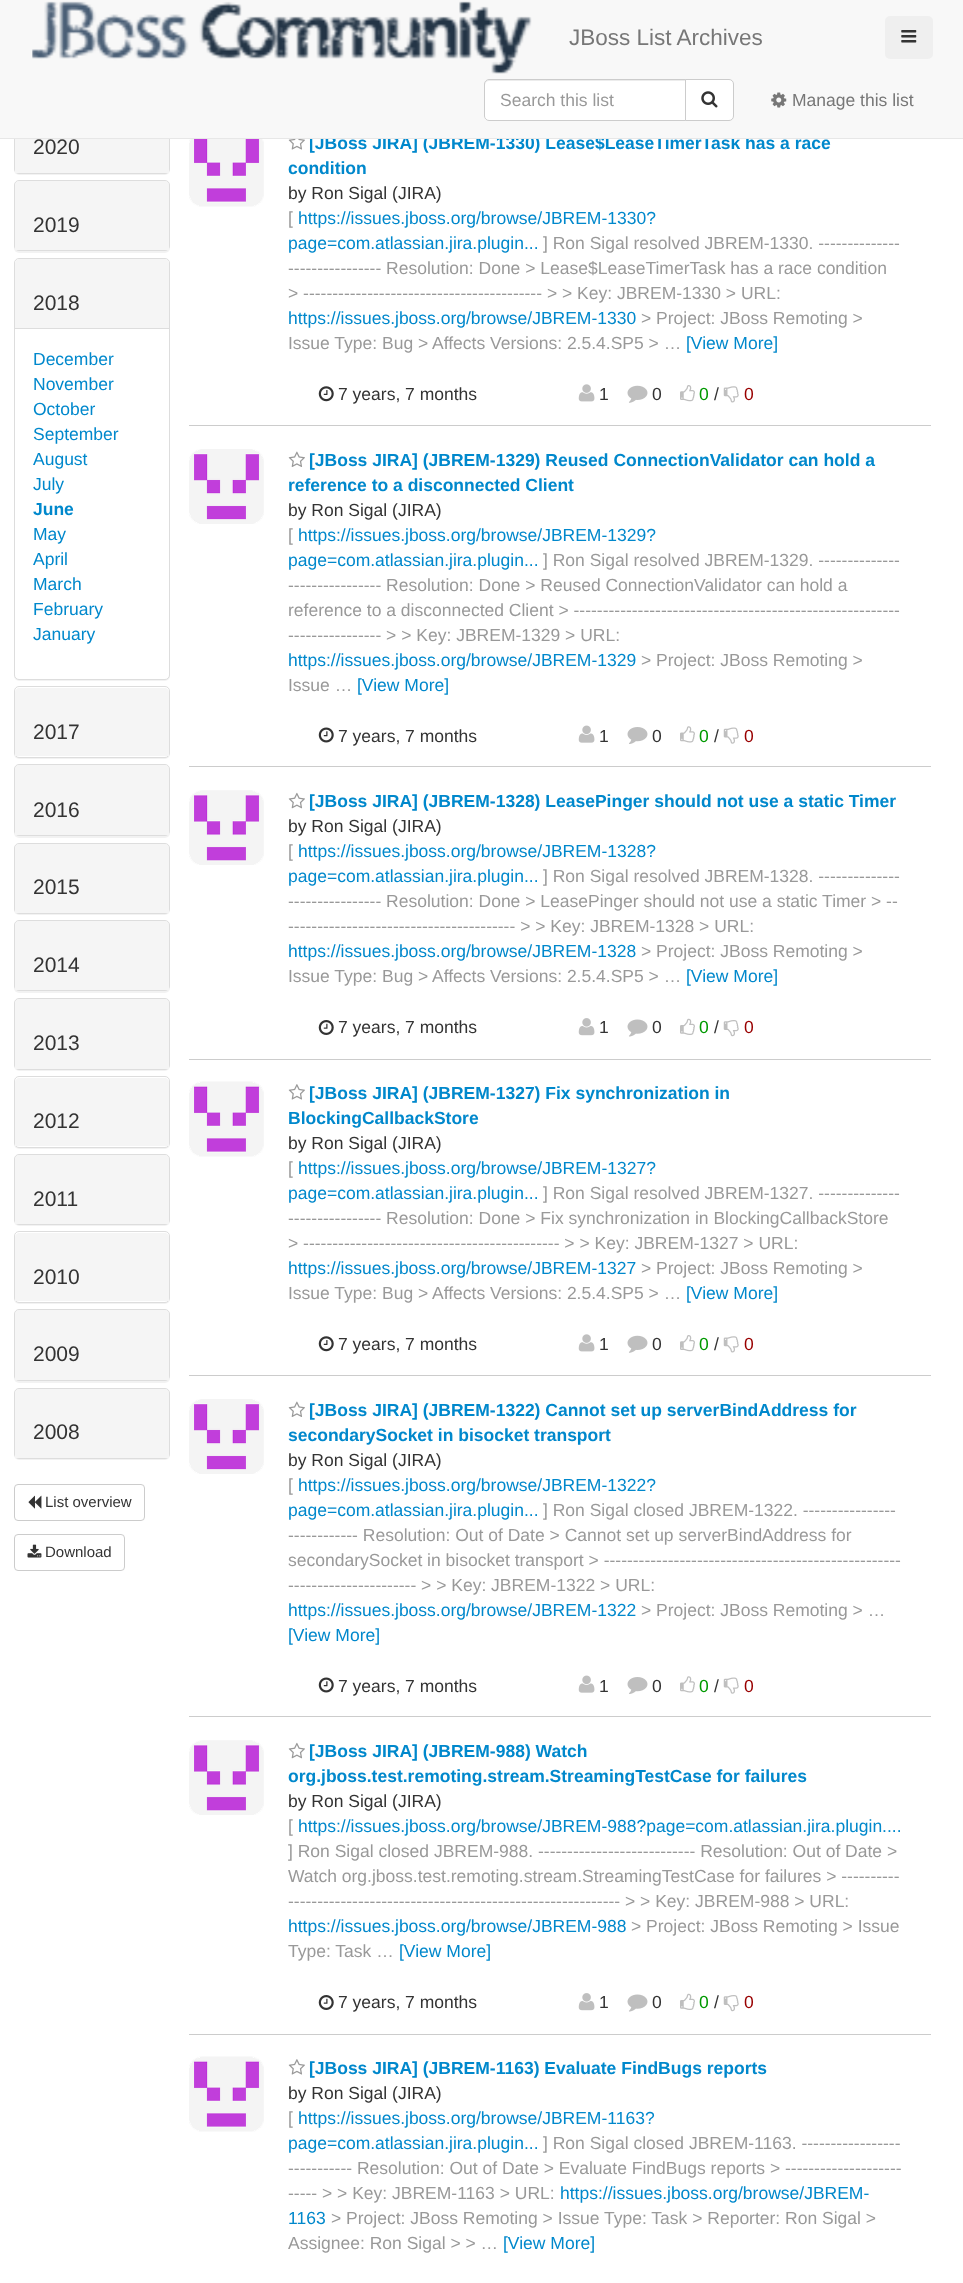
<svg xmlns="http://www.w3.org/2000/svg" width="963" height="2283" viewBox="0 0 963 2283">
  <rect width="100%" height="100%" fill="rgb(255,255,255)"/>
  <rect x="14" y="104" width="156" height="71" rx="5" fill="rgba(0,0,0,0.05)" filter="blur(0.5px)"/>
  <rect x="14.5" y="103.5" width="155" height="70" rx="4.5" fill="none" stroke="rgb(221,221,221)"/>
  <text x="309" y="149" font-family="Liberation Sans" font-size="17.5" font-weight="bold" fill="rgb(0,136,204)">[JBoss JIRA] (JBREM-1330) Lease$LeaseTimerTask has a race</text>
  <rect x="0" y="0" width="963" height="138" fill="rgb(248,248,248)"/>
  <rect x="0" y="138" width="963" height="1" fill="rgb(231,231,231)"/>
  <image x="32" y="1" width="500" height="73" href="pic1.png"/>
  <text x="569" y="45" font-family="Liberation Sans" font-size="22.5" fill="rgb(119,119,119)">JBoss List Archives</text>
  <rect x="885" y="16" width="48" height="43" rx="5" fill="rgb(239,239,239)"/>
  <image x="901" y="30" width="16" height="13" href="pic2.png"/>
  <path d="M489 79H686V121H489C486 121 484 119 484 116V84C484 81 486 79 489 79Z" fill="rgb(255,255,255)"/>
  <path d="M489 81H685V80H489C486 80 485 82 485 85C485 83 487 81 489 81Z" fill="rgb(236,236,236)"/>
  <path d="M489 79.5H685.5V120.5H489C486.5 120.5 484.5 118.5 484.5 116V84C484.5 81.5 486.5 79.5 489 79.5Z" fill="none" stroke="rgb(204,204,204)"/>
  <text x="500" y="106" font-family="Liberation Sans" font-size="17.5" fill="rgb(153,153,153)">Search this list</text>
  <path d="M685.5 79.5H729C731.5 79.5 733.5 81.5 733.5 84V116C733.5 118.5 731.5 120.5 729 120.5H685.5Z" fill="rgb(255,255,255)" stroke="rgb(204,204,204)"/>
  <image x="701" y="91" width="17" height="17" href="pic3.png"/>
  <image x="771" y="92" width="16" height="16" href="pic4.png"/>
  <text x="792" y="106" font-family="Liberation Sans" font-size="17.5" fill="rgb(119,119,119)">Manage this list</text>
  <rect x="15" y="139" width="154" height="34" fill="rgb(245,245,245)"/>
  <text x="33" y="154" font-family="Liberation Sans" font-size="21" fill="rgb(51,51,51)">2020</text>
  <rect x="14" y="181" width="156" height="72" rx="5" fill="rgba(0,0,0,0.05)" filter="blur(0.5px)"/>
  <rect x="14.5" y="180.5" width="155" height="70" rx="4.5" fill="none" stroke="rgb(221,221,221)"/>
  <path d="M19 181H165C167 181 169 183 169 185V250H15V185C15 183 17 181 19 181Z" fill="rgb(245,245,245)"/>
  <text x="33" y="232" font-family="Liberation Sans" font-size="21" fill="rgb(51,51,51)">2019</text>
  <rect x="14" y="259" width="156" height="422" rx="5" fill="rgba(0,0,0,0.05)" filter="blur(0.5px)"/>
  <rect x="14.5" y="258.5" width="155" height="421" rx="4.5" fill="rgb(255,255,255)" stroke="rgb(221,221,221)"/>
  <path d="M19 259H165C167 259 169 261 169 263V328H15V263C15 261 17 259 19 259Z" fill="rgb(245,245,245)"/>
  <text x="33" y="310" font-family="Liberation Sans" font-size="21" fill="rgb(51,51,51)">2018</text>
  <rect x="15" y="328" width="154" height="1" fill="rgb(221,221,221)"/>
  <g font-family="Liberation Sans" font-size="17.5" fill="rgb(0,136,204)">
    <text>
      <tspan x="33" y="365">December</tspan>
      <tspan x="33" y="390">November</tspan>
      <tspan x="33" y="415">October</tspan>
      <tspan x="33" y="440">September</tspan>
      <tspan x="33" y="465">August</tspan>
      <tspan x="33" y="490">July</tspan>
    </text>
  </g>
  <text x="33" y="515" font-family="Liberation Sans" font-size="17.5" font-weight="bold" fill="rgb(0,136,204)">June</text>
  <g font-family="Liberation Sans" font-size="17.5" fill="rgb(0,136,204)">
    <text>
      <tspan x="33" y="540">May</tspan>
      <tspan x="33" y="565">April</tspan>
      <tspan x="33" y="590">March</tspan>
      <tspan x="33" y="615">February</tspan>
      <tspan x="33" y="640">January</tspan>
    </text>
  </g>
  <rect x="14" y="688" width="156" height="71" rx="5" fill="rgba(0,0,0,0.05)" filter="blur(0.5px)"/>
  <rect x="14.5" y="686.5" width="155" height="71" rx="4.5" fill="rgb(255,255,255)" stroke="rgb(221,221,221)"/>
  <path d="M19 688H165C167 688 169 690 169 692V756H15V692C15 690 17 688 19 688Z" fill="rgb(245,245,245)"/>
  <text x="33" y="739" font-family="Liberation Sans" font-size="21" fill="rgb(51,51,51)">2017</text>
  <rect x="14" y="765" width="156" height="73" rx="5" fill="rgba(0,0,0,0.05)" filter="blur(0.5px)"/>
  <rect x="14.5" y="764.5" width="155" height="71" rx="4.5" fill="none" stroke="rgb(221,221,221)"/>
  <path d="M19 765H165C167 765 169 767 169 769V835H15V769C15 767 17 765 19 765Z" fill="rgb(245,245,245)"/>
  <text x="33" y="817" font-family="Liberation Sans" font-size="21" fill="rgb(51,51,51)">2016</text>
  <rect x="14" y="844" width="156" height="71" rx="5" fill="rgba(0,0,0,0.05)" filter="blur(0.5px)"/>
  <rect x="14.5" y="843.5" width="155" height="70" rx="4.5" fill="none" stroke="rgb(221,221,221)"/>
  <path d="M19 844H165C167 844 169 846 169 848V913H15V848C15 846 17 844 19 844Z" fill="rgb(245,245,245)"/>
  <text x="33" y="894" font-family="Liberation Sans" font-size="21" fill="rgb(51,51,51)">2015</text>
  <rect x="14" y="921" width="156" height="72" rx="5" fill="rgba(0,0,0,0.05)" filter="blur(0.5px)"/>
  <rect x="14.5" y="920.5" width="155" height="70" rx="4.5" fill="none" stroke="rgb(221,221,221)"/>
  <path d="M19 921H165C167 921 169 923 169 925V990H15V925C15 923 17 921 19 921Z" fill="rgb(245,245,245)"/>
  <text x="33" y="972" font-family="Liberation Sans" font-size="21" fill="rgb(51,51,51)">2014</text>
  <rect x="14" y="999" width="156" height="72" rx="5" fill="rgba(0,0,0,0.05)" filter="blur(0.5px)"/>
  <rect x="14.5" y="998.5" width="155" height="71" rx="4.5" fill="none" stroke="rgb(221,221,221)"/>
  <path d="M19 999H165C167 999 169 1001 169 1003V1069H15V1003C15 1001 17 999 19 999Z" fill="rgb(245,245,245)"/>
  <text x="33" y="1050" font-family="Liberation Sans" font-size="21" fill="rgb(51,51,51)">2013</text>
  <rect x="14" y="1078" width="156" height="71" rx="5" fill="rgba(0,0,0,0.05)" filter="blur(0.5px)"/>
  <rect x="14.5" y="1076.5" width="155" height="71" rx="4.5" fill="rgb(255,255,255)" stroke="rgb(221,221,221)"/>
  <path d="M19 1078H165C167 1078 169 1080 169 1082V1146H15V1082C15 1080 17 1078 19 1078Z" fill="rgb(245,245,245)"/>
  <text x="33" y="1128" font-family="Liberation Sans" font-size="21" fill="rgb(51,51,51)">2012</text>
  <rect x="14" y="1155" width="156" height="71" rx="5" fill="rgba(0,0,0,0.05)" filter="blur(0.5px)"/>
  <rect x="14.5" y="1154.5" width="155" height="70" rx="4.5" fill="none" stroke="rgb(221,221,221)"/>
  <path d="M19 1155H165C167 1155 169 1157 169 1159V1224H15V1159C15 1157 17 1155 19 1155Z" fill="rgb(245,245,245)"/>
  <text x="33" y="1206" font-family="Liberation Sans" font-size="21" fill="rgb(51,51,51)">2011</text>
  <rect x="14" y="1233" width="156" height="71" rx="5" fill="rgba(0,0,0,0.05)" filter="blur(0.5px)"/>
  <rect x="14.5" y="1231.5" width="155" height="71" rx="4.5" fill="rgb(255,255,255)" stroke="rgb(221,221,221)"/>
  <path d="M19 1233H165C167 1233 169 1235 169 1237V1301H15V1237C15 1235 17 1233 19 1233Z" fill="rgb(245,245,245)"/>
  <text x="33" y="1284" font-family="Liberation Sans" font-size="21" fill="rgb(51,51,51)">2010</text>
  <rect x="14" y="1310" width="156" height="73" rx="5" fill="rgba(0,0,0,0.05)" filter="blur(0.5px)"/>
  <rect x="14.5" y="1309.5" width="155" height="71" rx="4.5" fill="none" stroke="rgb(221,221,221)"/>
  <path d="M19 1310H165C167 1310 169 1312 169 1314V1380H15V1314C15 1312 17 1310 19 1310Z" fill="rgb(245,245,245)"/>
  <text x="33" y="1361" font-family="Liberation Sans" font-size="21" fill="rgb(51,51,51)">2009</text>
  <rect x="14" y="1389" width="156" height="71" rx="5" fill="rgba(0,0,0,0.05)" filter="blur(0.5px)"/>
  <rect x="14.5" y="1388.5" width="155" height="70" rx="4.5" fill="none" stroke="rgb(221,221,221)"/>
  <path d="M19 1389H165C167 1389 169 1391 169 1393V1458H15V1393C15 1391 17 1389 19 1389Z" fill="rgb(245,245,245)"/>
  <text x="33" y="1439" font-family="Liberation Sans" font-size="21" fill="rgb(51,51,51)">2008</text>
  <rect x="14.5" y="1484.5" width="130" height="36" rx="3.5" fill="none" stroke="rgb(204,204,204)"/>
  <image x="28" y="1495" width="14" height="14" href="pic5.png"/>
  <text x="45" y="1507" font-family="Liberation Sans" font-size="15" fill="rgb(51,51,51)">List overview</text>
  <rect x="14.5" y="1534.5" width="110" height="36" rx="3.5" fill="none" stroke="rgb(204,204,204)"/>
  <image x="27" y="1544" width="15" height="14" href="pic6.png"/>
  <text x="45" y="1557" font-family="Liberation Sans" font-size="15" fill="rgb(51,51,51)">Download</text>
  <rect x="189" y="425" width="742" height="1" fill="rgb(204,204,204)"/>
  <image x="189" y="139" width="75" height="68" href="pic7.png"/>
  <image x="288" y="139" width="17" height="11" href="pic8.png"/>
  <text x="288" y="174" font-family="Liberation Sans" font-size="17.5" font-weight="bold" fill="rgb(0,136,204)">condition</text>
  <text x="288" y="199" font-family="Liberation Sans" font-size="17.5" fill="rgb(51,51,51)">by Ron Sigal (JIRA)</text>
  <text x="288" y="224" font-family="Liberation Sans" font-size="17.5" fill="rgb(153,153,153)">[</text>
  <g font-family="Liberation Sans" font-size="17.5" fill="rgb(0,136,204)">
    <text x="298" y="224">https://issues.jboss.org/browse/JBREM-1330?</text>
    <text x="288" y="249">page=com.atlassian.jira.plugin...</text>
  </g>
  <g font-family="Liberation Sans" font-size="17.5" fill="rgb(153,153,153)">
    <text x="543" y="249">] Ron Sigal resolved JBREM-1330. --------------</text>
    <text>
      <tspan x="288" y="274">---------------- Resolution: Done &gt; Lease$LeaseTimerTask has a race condition</tspan>
      <tspan x="288" y="299">&gt; ----------------------------------------- &gt; &gt; Key: JBREM-1330 &gt; URL:</tspan>
    </text>
  </g>
  <text x="288" y="324" font-family="Liberation Sans" font-size="17.5" fill="rgb(0,136,204)">https://issues.jboss.org/browse/JBREM-1330</text>
  <g font-family="Liberation Sans" font-size="17.5" fill="rgb(153,153,153)">
    <text x="641" y="324">&gt; Project: JBoss Remoting &gt;</text>
    <text x="288" y="349">Issue Type: Bug &gt;</text>
    <text x="432" y="349">Affects Versions: 2.5.4.SP5 &gt; …</text>
  </g>
  <text x="686" y="349" font-family="Liberation Sans" font-size="17.5" fill="rgb(0,136,204)">[View More]</text>
  <image x="318" y="386" width="16" height="16" href="pic9.png"/>
  <text x="338" y="400" font-family="Liberation Sans" font-size="17.5" fill="rgb(51,51,51)">7 years, 7 months</text>
  <image x="578" y="384" width="17" height="18" href="pic10.png"/>
  <text x="599" y="400" font-family="Liberation Sans" font-size="17.5" fill="rgb(51,51,51)">1</text>
  <image x="627" y="385" width="21" height="18" href="pic11.png"/>
  <text x="652" y="400" font-family="Liberation Sans" font-size="17.5" fill="rgb(51,51,51)">0</text>
  <image x="680" y="385" width="15" height="17" href="pic12.png"/>
  <text x="699" y="400" font-family="Liberation Sans" font-size="17.5" fill="rgb(0,153,0)">0</text>
  <text x="714" y="400" font-family="Liberation Sans" font-size="17.5" fill="rgb(51,51,51)">/</text>
  <image x="723" y="386" width="16" height="17" href="pic13.png"/>
  <text x="744" y="400" font-family="Liberation Sans" font-size="17.5" fill="rgb(153,0,0)">0</text>
  <rect x="189" y="766" width="742" height="1" fill="rgb(204,204,204)"/>
  <image x="189" y="449" width="75" height="75" href="pic14.png"/>
  <image x="288" y="451" width="17" height="16" href="pic15.png"/>
  <g font-family="Liberation Sans" font-size="17.5" font-weight="bold" fill="rgb(0,136,204)">
    <text x="309" y="466">[JBoss JIRA] (JBREM-1329) Reused ConnectionValidator can hold a</text>
    <text x="288" y="491">reference to a disconnected Client</text>
  </g>
  <text x="288" y="516" font-family="Liberation Sans" font-size="17.5" fill="rgb(51,51,51)">by Ron Sigal (JIRA)</text>
  <text x="288" y="541" font-family="Liberation Sans" font-size="17.5" fill="rgb(153,153,153)">[</text>
  <g font-family="Liberation Sans" font-size="17.5" fill="rgb(0,136,204)">
    <text x="298" y="541">https://issues.jboss.org/browse/JBREM-1329?</text>
    <text x="288" y="566">page=com.atlassian.jira.plugin...</text>
  </g>
  <g font-family="Liberation Sans" font-size="17.5" fill="rgb(153,153,153)">
    <text x="543" y="566">] Ron Sigal resolved JBREM-1329. --------------</text>
    <text>
      <tspan x="288" y="591">---------------- Resolution: Done &gt; Reused ConnectionValidator can hold a</tspan>
      <tspan x="288" y="616">reference to a disconnected Client &gt; --------------------------------------------------------</tspan>
      <tspan x="288" y="641">---------------- &gt; &gt; Key: JBREM-1329 &gt; URL:</tspan>
    </text>
  </g>
  <text x="288" y="666" font-family="Liberation Sans" font-size="17.5" fill="rgb(0,136,204)">https://issues.jboss.org/browse/JBREM-1329</text>
  <g font-family="Liberation Sans" font-size="17.5" fill="rgb(153,153,153)">
    <text x="641" y="666">&gt; Project: JBoss Remoting &gt;</text>
    <text x="288" y="691">Issue …</text>
  </g>
  <text x="357" y="691" font-family="Liberation Sans" font-size="17.5" fill="rgb(0,136,204)">[View More]</text>
  <image x="318" y="727" width="16" height="16" href="pic16.png"/>
  <text x="338" y="742" font-family="Liberation Sans" font-size="17.5" fill="rgb(51,51,51)">7 years, 7 months</text>
  <image x="578" y="725" width="17" height="18" href="pic17.png"/>
  <text x="599" y="742" font-family="Liberation Sans" font-size="17.5" fill="rgb(51,51,51)">1</text>
  <image x="627" y="727" width="21" height="17" href="pic18.png"/>
  <text x="652" y="742" font-family="Liberation Sans" font-size="17.5" fill="rgb(51,51,51)">0</text>
  <image x="680" y="726" width="15" height="17" href="pic19.png"/>
  <text x="699" y="742" font-family="Liberation Sans" font-size="17.5" fill="rgb(0,153,0)">0</text>
  <text x="714" y="742" font-family="Liberation Sans" font-size="17.5" fill="rgb(51,51,51)">/</text>
  <image x="723" y="727" width="16" height="17" href="pic20.png"/>
  <text x="744" y="742" font-family="Liberation Sans" font-size="17.5" fill="rgb(153,0,0)">0</text>
  <rect x="189" y="1059" width="742" height="1" fill="rgb(204,204,204)"/>
  <image x="189" y="790" width="75" height="75" href="pic21.png"/>
  <image x="288" y="792" width="17" height="17" href="pic22.png"/>
  <text x="309" y="807" font-family="Liberation Sans" font-size="17.5" font-weight="bold" fill="rgb(0,136,204)">[JBoss JIRA] (JBREM-1328) LeasePinger should not use a static Timer</text>
  <text x="288" y="832" font-family="Liberation Sans" font-size="17.5" fill="rgb(51,51,51)">by Ron Sigal (JIRA)</text>
  <text x="288" y="857" font-family="Liberation Sans" font-size="17.5" fill="rgb(153,153,153)">[</text>
  <g font-family="Liberation Sans" font-size="17.5" fill="rgb(0,136,204)">
    <text x="298" y="857">https://issues.jboss.org/browse/JBREM-1328?</text>
    <text x="288" y="882">page=com.atlassian.jira.plugin...</text>
  </g>
  <g font-family="Liberation Sans" font-size="17.5" fill="rgb(153,153,153)">
    <text x="543" y="882">] Ron Sigal resolved JBREM-1328. --------------</text>
    <text>
      <tspan x="288" y="907">---------------- Resolution: Done &gt; LeasePinger should not use a static Timer &gt; --</tspan>
      <tspan x="288" y="932">--------------------------------------- &gt; &gt; Key: JBREM-1328 &gt; URL:</tspan>
    </text>
  </g>
  <text x="288" y="957" font-family="Liberation Sans" font-size="17.5" fill="rgb(0,136,204)">https://issues.jboss.org/browse/JBREM-1328</text>
  <g font-family="Liberation Sans" font-size="17.5" fill="rgb(153,153,153)">
    <text x="641" y="957">&gt; Project: JBoss Remoting &gt;</text>
    <text x="288" y="982">Issue Type: Bug &gt;</text>
    <text x="432" y="982">Affects Versions: 2.5.4.SP5 &gt; …</text>
  </g>
  <text x="686" y="982" font-family="Liberation Sans" font-size="17.5" fill="rgb(0,136,204)">[View More]</text>
  <image x="318" y="1020" width="16" height="15" href="pic23.png"/>
  <text x="338" y="1033" font-family="Liberation Sans" font-size="17.5" fill="rgb(51,51,51)">7 years, 7 months</text>
  <image x="578" y="1018" width="17" height="18" href="pic24.png"/>
  <text x="599" y="1033" font-family="Liberation Sans" font-size="17.5" fill="rgb(51,51,51)">1</text>
  <image x="627" y="1019" width="21" height="18" href="pic25.png"/>
  <text x="652" y="1033" font-family="Liberation Sans" font-size="17.5" fill="rgb(51,51,51)">0</text>
  <image x="680" y="1018" width="15" height="17" href="pic26.png"/>
  <text x="699" y="1033" font-family="Liberation Sans" font-size="17.5" fill="rgb(0,153,0)">0</text>
  <text x="714" y="1033" font-family="Liberation Sans" font-size="17.5" fill="rgb(51,51,51)">/</text>
  <image x="723" y="1020" width="16" height="17" href="pic27.png"/>
  <text x="744" y="1033" font-family="Liberation Sans" font-size="17.5" fill="rgb(153,0,0)">0</text>
  <rect x="189" y="1375" width="742" height="1" fill="rgb(204,204,204)"/>
  <image x="189" y="1081" width="75" height="76" href="pic28.png"/>
  <image x="288" y="1084" width="17" height="16" href="pic29.png"/>
  <g font-family="Liberation Sans" font-size="17.5" font-weight="bold" fill="rgb(0,136,204)">
    <text x="309" y="1099">[JBoss JIRA] (JBREM-1327) Fix synchronization in</text>
    <text x="288" y="1124">BlockingCallbackStore</text>
  </g>
  <text x="288" y="1149" font-family="Liberation Sans" font-size="17.5" fill="rgb(51,51,51)">by Ron Sigal (JIRA)</text>
  <text x="288" y="1174" font-family="Liberation Sans" font-size="17.5" fill="rgb(153,153,153)">[</text>
  <g font-family="Liberation Sans" font-size="17.5" fill="rgb(0,136,204)">
    <text x="298" y="1174">https://issues.jboss.org/browse/JBREM-1327?</text>
    <text x="288" y="1199">page=com.atlassian.jira.plugin...</text>
  </g>
  <g font-family="Liberation Sans" font-size="17.5" fill="rgb(153,153,153)">
    <text x="543" y="1199">] Ron Sigal resolved JBREM-1327. --------------</text>
    <text>
      <tspan x="288" y="1224">---------------- Resolution: Done &gt; Fix synchronization in BlockingCallbackStore</tspan>
      <tspan x="288" y="1249">&gt; -------------------------------------------- &gt; &gt; Key: JBREM-1327 &gt; URL:</tspan>
    </text>
  </g>
  <text x="288" y="1274" font-family="Liberation Sans" font-size="17.5" fill="rgb(0,136,204)">https://issues.jboss.org/browse/JBREM-1327</text>
  <g font-family="Liberation Sans" font-size="17.5" fill="rgb(153,153,153)">
    <text x="641" y="1274">&gt; Project: JBoss Remoting &gt;</text>
    <text x="288" y="1299">Issue Type: Bug &gt;</text>
    <text x="432" y="1299">Affects Versions: 2.5.4.SP5 &gt; …</text>
  </g>
  <text x="686" y="1299" font-family="Liberation Sans" font-size="17.5" fill="rgb(0,136,204)">[View More]</text>
  <image x="318" y="1336" width="16" height="16" href="pic9.png"/>
  <text x="338" y="1350" font-family="Liberation Sans" font-size="17.5" fill="rgb(51,51,51)">7 years, 7 months</text>
  <image x="578" y="1334" width="17" height="18" href="pic10.png"/>
  <text x="599" y="1350" font-family="Liberation Sans" font-size="17.5" fill="rgb(51,51,51)">1</text>
  <image x="627" y="1335" width="21" height="18" href="pic11.png"/>
  <text x="652" y="1350" font-family="Liberation Sans" font-size="17.5" fill="rgb(51,51,51)">0</text>
  <image x="680" y="1335" width="15" height="17" href="pic12.png"/>
  <text x="699" y="1350" font-family="Liberation Sans" font-size="17.5" fill="rgb(0,153,0)">0</text>
  <text x="714" y="1350" font-family="Liberation Sans" font-size="17.5" fill="rgb(51,51,51)">/</text>
  <image x="723" y="1336" width="16" height="17" href="pic13.png"/>
  <text x="744" y="1350" font-family="Liberation Sans" font-size="17.5" fill="rgb(153,0,0)">0</text>
  <rect x="189" y="1716" width="742" height="1" fill="rgb(204,204,204)"/>
  <image x="189" y="1399" width="75" height="75" href="pic14.png"/>
  <image x="288" y="1401" width="17" height="16" href="pic15.png"/>
  <g font-family="Liberation Sans" font-size="17.5" font-weight="bold" fill="rgb(0,136,204)">
    <text x="309" y="1416">[JBoss JIRA] (JBREM-1322) Cannot set up serverBindAddress for</text>
    <text x="288" y="1441">secondarySocket in bisocket transport</text>
  </g>
  <text x="288" y="1466" font-family="Liberation Sans" font-size="17.5" fill="rgb(51,51,51)">by Ron Sigal (JIRA)</text>
  <text x="288" y="1491" font-family="Liberation Sans" font-size="17.5" fill="rgb(153,153,153)">[</text>
  <g font-family="Liberation Sans" font-size="17.5" fill="rgb(0,136,204)">
    <text x="298" y="1491">https://issues.jboss.org/browse/JBREM-1322?</text>
    <text x="288" y="1516">page=com.atlassian.jira.plugin...</text>
  </g>
  <g font-family="Liberation Sans" font-size="17.5" fill="rgb(153,153,153)">
    <text x="543" y="1516">] Ron Sigal closed JBREM-1322. ----------------</text>
    <text>
      <tspan x="288" y="1541">------------ Resolution: Out of Date &gt; Cannot set up serverBindAddress for</tspan>
      <tspan x="288" y="1566">secondarySocket in bisocket transport &gt; ---------------------------------------------------</tspan>
      <tspan x="288" y="1591">---------------------- &gt; &gt; Key: JBREM-1322 &gt; URL:</tspan>
    </text>
  </g>
  <text x="288" y="1616" font-family="Liberation Sans" font-size="17.5" fill="rgb(0,136,204)">https://issues.jboss.org/browse/JBREM-1322</text>
  <text x="641" y="1616" font-family="Liberation Sans" font-size="17.5" fill="rgb(153,153,153)">&gt; Project: JBoss Remoting &gt; …</text>
  <text x="288" y="1641" font-family="Liberation Sans" font-size="17.5" fill="rgb(0,136,204)">[View More]</text>
  <image x="318" y="1677" width="16" height="16" href="pic16.png"/>
  <text x="338" y="1692" font-family="Liberation Sans" font-size="17.5" fill="rgb(51,51,51)">7 years, 7 months</text>
  <image x="578" y="1675" width="17" height="18" href="pic17.png"/>
  <text x="599" y="1692" font-family="Liberation Sans" font-size="17.5" fill="rgb(51,51,51)">1</text>
  <image x="627" y="1677" width="21" height="17" href="pic18.png"/>
  <text x="652" y="1692" font-family="Liberation Sans" font-size="17.5" fill="rgb(51,51,51)">0</text>
  <image x="680" y="1676" width="15" height="17" href="pic19.png"/>
  <text x="699" y="1692" font-family="Liberation Sans" font-size="17.5" fill="rgb(0,153,0)">0</text>
  <text x="714" y="1692" font-family="Liberation Sans" font-size="17.5" fill="rgb(51,51,51)">/</text>
  <image x="723" y="1677" width="16" height="17" href="pic20.png"/>
  <text x="744" y="1692" font-family="Liberation Sans" font-size="17.5" fill="rgb(153,0,0)">0</text>
  <rect x="189" y="2034" width="742" height="1" fill="rgb(204,204,204)"/>
  <image x="189" y="1740" width="75" height="75" href="pic21.png"/>
  <image x="288" y="1742" width="17" height="17" href="pic22.png"/>
  <g font-family="Liberation Sans" font-size="17.5" font-weight="bold" fill="rgb(0,136,204)">
    <text x="309" y="1757">[JBoss JIRA] (JBREM-988) Watch</text>
    <text x="288" y="1782">org.jboss.test.remoting.stream.StreamingTestCase for failures</text>
  </g>
  <text x="288" y="1807" font-family="Liberation Sans" font-size="17.5" fill="rgb(51,51,51)">by Ron Sigal (JIRA)</text>
  <text x="288" y="1832" font-family="Liberation Sans" font-size="17.5" fill="rgb(153,153,153)">[</text>
  <text x="298" y="1832" font-family="Liberation Sans" font-size="17.5" fill="rgb(0,136,204)">https://issues.jboss.org/browse/JBREM-988?page=com.atlassian.jira.plugin....</text>
  <g font-family="Liberation Sans" font-size="17.5" fill="rgb(153,153,153)">
    <text>
      <tspan x="288" y="1857">] Ron Sigal closed JBREM-988. --------------------------- Resolution: Out of Date &gt;</tspan>
      <tspan x="288" y="1882">Watch org.jboss.test.remoting.stream.StreamingTestCase for failures &gt; ----------</tspan>
      <tspan x="288" y="1907">--------------------------------------------------------- &gt; &gt; Key: JBREM-988 &gt; URL:</tspan>
    </text>
  </g>
  <text x="288" y="1932" font-family="Liberation Sans" font-size="17.5" fill="rgb(0,136,204)">https://issues.jboss.org/browse/JBREM-988</text>
  <g font-family="Liberation Sans" font-size="17.5" fill="rgb(153,153,153)">
    <text x="631" y="1932">&gt; Project: JBoss Remoting &gt; Issue</text>
    <text x="288" y="1957">Type: Task …</text>
  </g>
  <text x="399" y="1957" font-family="Liberation Sans" font-size="17.5" fill="rgb(0,136,204)">[View More]</text>
  <image x="318" y="1995" width="16" height="15" href="pic23.png"/>
  <text x="338" y="2008" font-family="Liberation Sans" font-size="17.5" fill="rgb(51,51,51)">7 years, 7 months</text>
  <image x="578" y="1993" width="17" height="18" href="pic24.png"/>
  <text x="599" y="2008" font-family="Liberation Sans" font-size="17.5" fill="rgb(51,51,51)">1</text>
  <image x="627" y="1994" width="21" height="18" href="pic25.png"/>
  <text x="652" y="2008" font-family="Liberation Sans" font-size="17.5" fill="rgb(51,51,51)">0</text>
  <image x="680" y="1993" width="15" height="17" href="pic26.png"/>
  <text x="699" y="2008" font-family="Liberation Sans" font-size="17.5" fill="rgb(0,153,0)">0</text>
  <text x="714" y="2008" font-family="Liberation Sans" font-size="17.5" fill="rgb(51,51,51)">/</text>
  <image x="723" y="1995" width="16" height="17" href="pic27.png"/>
  <text x="744" y="2008" font-family="Liberation Sans" font-size="17.5" fill="rgb(153,0,0)">0</text>
  <image x="189" y="2056" width="75" height="76" href="pic30.png"/>
  <image x="288" y="2059" width="17" height="16" href="pic29.png"/>
  <text x="309" y="2074" font-family="Liberation Sans" font-size="17.5" font-weight="bold" fill="rgb(0,136,204)">[JBoss JIRA] (JBREM-1163) Evaluate FindBugs reports</text>
  <text x="288" y="2099" font-family="Liberation Sans" font-size="17.5" fill="rgb(51,51,51)">by Ron Sigal (JIRA)</text>
  <text x="288" y="2124" font-family="Liberation Sans" font-size="17.5" fill="rgb(153,153,153)">[</text>
  <g font-family="Liberation Sans" font-size="17.5" fill="rgb(0,136,204)">
    <text x="298" y="2124">https://issues.jboss.org/browse/JBREM-1163?</text>
    <text x="288" y="2149">page=com.atlassian.jira.plugin...</text>
  </g>
  <g font-family="Liberation Sans" font-size="17.5" fill="rgb(153,153,153)">
    <text x="543" y="2149">] Ron Sigal closed JBREM-1163. -----------------</text>
    <text>
      <tspan x="288" y="2174">----------- Resolution: Out of Date &gt; Evaluate FindBugs reports &gt; --------------------</tspan>
      <tspan x="288" y="2199">----- &gt; &gt; Key: JBREM-1163 &gt; URL:</tspan>
    </text>
  </g>
  <g font-family="Liberation Sans" font-size="17.5" fill="rgb(0,136,204)">
    <text x="560" y="2199">https://issues.jboss.org/browse/JBREM-</text>
    <text x="288" y="2224">1163</text>
  </g>
  <g font-family="Liberation Sans" font-size="17.5" fill="rgb(153,153,153)">
    <text x="331" y="2224">&gt; Project: JBoss Remoting &gt; Issue Type: Task &gt; Reporter: Ron Sigal &gt;</text>
    <text x="288" y="2249">Assignee: Ron Sigal &gt; &gt; …</text>
  </g>
  <text x="503" y="2249" font-family="Liberation Sans" font-size="17.5" fill="rgb(0,136,204)">[View More]</text>
</svg>
